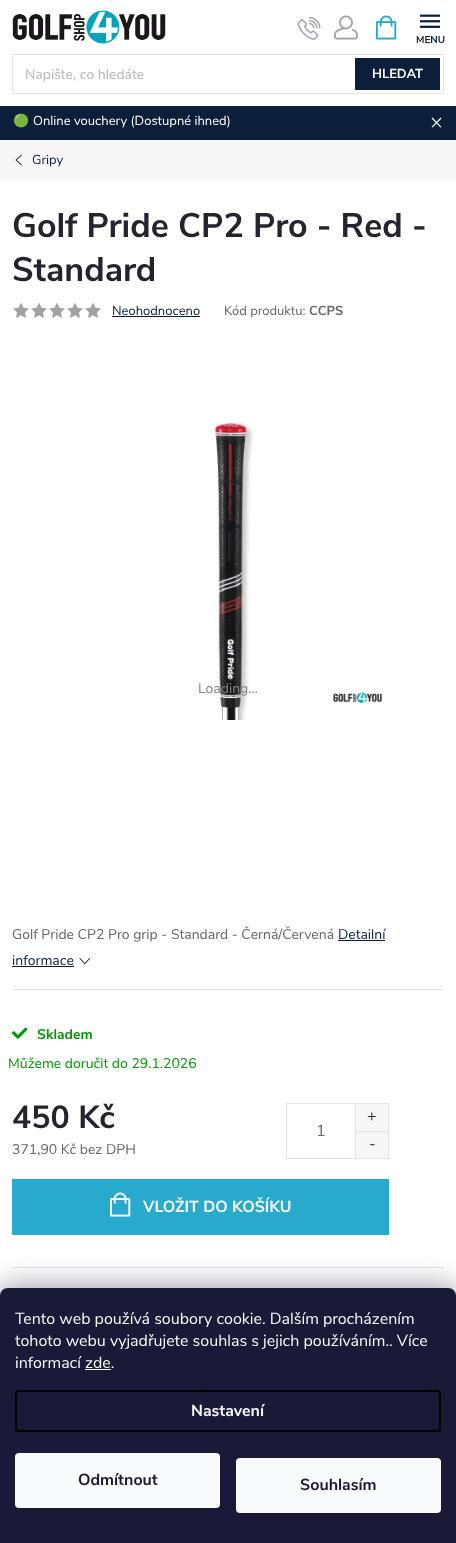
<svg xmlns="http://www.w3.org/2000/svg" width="456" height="1543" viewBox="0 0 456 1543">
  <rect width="100%" height="100%" fill="rgb(255,255,255)"/>
  <image x="297" y="17" width="24" height="23" href="pic1.png"/>
  <image x="334" y="15" width="24" height="25" href="pic2.png"/>
  <image x="420" y="14" width="20" height="14" href="pic3.png"/>
  <text x="416" y="43" font-family="Nunito Sans" font-size="10" font-weight="bold" fill="rgb(11,31,58)">MENU</text>
  <image x="12" y="10" width="154" height="34" href="pic4.png"/>
  <image x="376" y="15" width="21" height="25" href="pic5.png"/>
  <rect x="12.5" y="54.5" width="431" height="39" fill="none" stroke="rgb(228,228,228)"/>
  <text x="25" y="79" font-family="Nunito Sans" font-size="14" fill="rgb(182,182,182)">Napište, co hledáte</text>
  <rect x="355" y="58" width="85" height="32" fill="rgb(11,31,58)"/>
  <text x="372" y="78" font-family="Nunito Sans" font-size="13" font-weight="bold" fill="rgb(255,255,255)">HLEDAT</text>
  <rect x="0" y="106" width="456" height="34" fill="rgb(11,31,58)"/>
  <text x="13" y="125" font-family="Noto Color Emoji" font-size="13" fill="rgb(255,255,255)">🟢</text>
  <text x="33" y="125" font-family="Nunito Sans" font-size="13" fill="rgb(255,255,255)">Online vouchery (Dostupné ihned)</text>
  <path d="M440.5 117.5L441.5 118.5L432.5 127.5L431.5 127Z" fill="rgb(255,255,255)"/>
  <path d="M432.5 117.5L441.5 127L440.5 127.5L431.5 118.5Z" fill="rgb(255,255,255)"/>
  <rect x="0" y="140" width="456" height="40" fill="rgb(246,246,246)"/>
  <image x="15" y="154" width="7" height="12" href="pic6.png"/>
  <text x="32" y="164" font-family="Nunito Sans" font-size="13" fill="rgb(11,31,58)">Gripy</text>
  <g font-family="Nunito Sans" font-size="34" font-weight="bold" fill="rgb(36,36,46)">
    <text>
      <tspan x="12" y="237">Golf Pride CP2 Pro - Red -</tspan>
      <tspan x="12" y="281">Standard</tspan>
    </text>
  </g>
  <image x="13" y="303" width="16" height="15" href="pic7.png"/>
  <image x="31" y="303" width="16" height="15" href="pic7.png"/>
  <image x="49" y="303" width="16" height="15" href="pic7.png"/>
  <image x="67" y="303" width="16" height="15" href="pic7.png"/>
  <image x="85" y="303" width="16" height="15" href="pic7.png"/>
  <text x="112" y="315" font-family="Nunito Sans" font-size="13" fill="rgb(11,31,58)">Neohodnoceno</text>
  <rect x="112" y="316" width="88" height="1" fill="rgb(11,31,58)"/>
  <text x="224" y="315" font-family="Nunito Sans" font-size="13" fill="rgb(101,101,112)">Kód produktu:</text>
  <text x="309" y="315" font-family="Nunito Sans" font-size="13" font-weight="bold" fill="rgb(101,101,112)">CCPS</text>
  <image x="214" y="420" width="169" height="300" href="pic8.png"/>
  <text x="198" y="693" font-family="Nunito Sans" font-size="14" fill="rgb(132,132,132)">Loading...</text>
  <rect x="12" y="989" width="432" height="1" fill="rgb(228,228,228)"/>
  <text x="12" y="939" font-family="Nunito Sans" font-size="14" fill="rgb(101,101,101)">Golf Pride CP2 Pro grip - Standard - Černá/Červená</text>
  <text x="338" y="939" font-family="Nunito Sans" font-size="14" fill="rgb(11,31,58)">Detailní</text>
  <rect x="338" y="940" width="47" height="1" fill="rgb(11,31,58)"/>
  <text x="12" y="965" font-family="Nunito Sans" font-size="14" fill="rgb(11,31,58)">informace</text>
  <rect x="12" y="966" width="62" height="1" fill="rgb(11,31,58)"/>
  <image x="79" y="958" width="12" height="7" href="pic9.png"/>
  <image x="12" y="1027" width="16" height="12" href="pic10.png"/>
  <text x="37" y="1039" font-family="Nunito Sans" font-size="14" font-weight="bold" fill="rgb(0,153,1)">Skladem</text>
  <text x="8" y="1068" font-family="Nunito Sans" font-size="14" fill="rgb(0,153,1)">Můžeme doručit do 29.1.2026</text>
  <text x="12" y="1128" font-family="Nunito Sans" font-size="32" font-weight="bold" fill="rgb(36,36,46)">450 Kč</text>
  <text x="12" y="1154" font-family="Nunito Sans" font-size="14" fill="rgb(101,101,101)">371,90 Kč bez DPH</text>
  <rect x="286.5" y="1103.5" width="102" height="55" fill="none" stroke="rgb(228,228,228)"/>
  <rect x="356" y="1104" width="32" height="27" fill="rgb(246,246,246)"/>
  <rect x="355" y="1104" width="1" height="27" fill="rgb(228,228,228)"/>
  <text x="367" y="1121" font-family="Nunito Sans" font-size="16" fill="rgb(36,36,46)">+</text>
  <text x="316" y="1136" font-family="Nunito Sans" font-size="16" fill="rgb(101,101,112)">1</text>
  <rect x="356" y="1132" width="32" height="26" fill="rgb(246,246,246)"/>
  <rect x="355" y="1131" width="33" height="1" fill="rgb(228,228,228)"/>
  <rect x="355" y="1131" width="1" height="27" fill="rgb(228,228,228)"/>
  <text x="369" y="1149" font-family="Nunito Sans" font-size="16" fill="rgb(36,36,46)">-</text>
  <rect x="12" y="1179" width="377" height="56" fill="rgb(39,170,205)"/>
  <image x="110" y="1192" width="21" height="25" href="pic11.png"/>
  <text x="143" y="1212" font-family="Nunito Sans" font-size="16" font-weight="bold" fill="rgb(255,255,255)">VLOŽIT DO KOŠÍKU</text>
  <rect x="12" y="1267" width="432" height="1" fill="rgb(228,228,228)"/>
  <rect x="0" y="1288" width="456" height="255" rx="8" fill="rgba(27,25,57,0.5)" filter="blur(15px)"/>
  <path d="M8 1288H448C452.5 1288 456 1291.5 456 1296V1543H0V1296C0 1291.5 3.5 1288 8 1288Z" fill="rgb(26,25,55)"/>
  <g font-family="Nunito Sans" font-size="16" fill="rgb(248,250,251)">
    <text>
      <tspan x="15" y="1324">Tento web používá soubory cookie. Dalším procházením</tspan>
      <tspan x="15" y="1346">tohoto webu vyjadřujete souhlas s jejich používáním.. Více</tspan>
      <tspan x="15" y="1368">informací zde.</tspan>
    </text>
  </g>
  <rect x="85" y="1369" width="26" height="1" fill="rgb(248,250,251)"/>
  <rect x="16" y="1391" width="424" height="40" rx="3" fill="none" stroke="rgb(0,0,0)" stroke-width="2"/>
  <text x="191" y="1416" font-family="Nunito Sans" font-size="16" font-weight="bold" fill="rgb(248,250,251)">Nastavení</text>
  <rect x="15" y="1453" width="205" height="55" rx="4" fill="rgb(248,250,251)"/>
  <text x="78" y="1485" font-family="Nunito Sans" font-size="16" font-weight="bold" fill="rgb(26,25,55)">Odmítnout</text>
  <rect x="236" y="1458" width="205" height="55" rx="4" fill="rgb(248,250,251)"/>
  <text x="300" y="1490" font-family="Nunito Sans" font-size="16" font-weight="bold" fill="rgb(26,25,55)">Souhlasím</text>
</svg>
